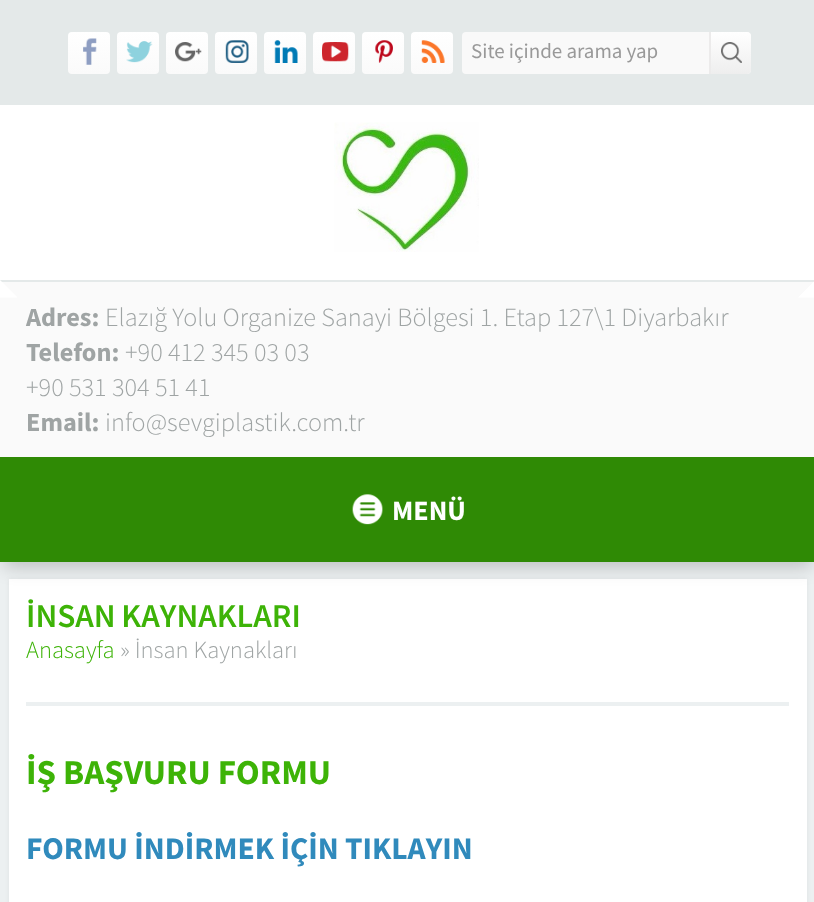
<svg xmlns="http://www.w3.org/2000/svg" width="814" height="902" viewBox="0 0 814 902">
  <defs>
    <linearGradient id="g1" gradientUnits="userSpaceOnUse" x1="89" y1="74" x2="89" y2="32"><stop offset="0" stop-color="rgb(250,250,250)"/><stop offset="1" stop-color="rgb(255,255,255)"/></linearGradient>
    <linearGradient id="g2" gradientUnits="userSpaceOnUse" x1="138" y1="74" x2="138" y2="32"><stop offset="0" stop-color="rgb(250,250,250)"/><stop offset="1" stop-color="rgb(255,255,255)"/></linearGradient>
    <linearGradient id="g3" gradientUnits="userSpaceOnUse" x1="187" y1="74" x2="187" y2="32"><stop offset="0" stop-color="rgb(250,250,250)"/><stop offset="1" stop-color="rgb(255,255,255)"/></linearGradient>
    <linearGradient id="g4" gradientUnits="userSpaceOnUse" x1="236" y1="74" x2="236" y2="32"><stop offset="0" stop-color="rgb(250,250,250)"/><stop offset="1" stop-color="rgb(255,255,255)"/></linearGradient>
    <linearGradient id="g5" gradientUnits="userSpaceOnUse" x1="285" y1="74" x2="285" y2="32"><stop offset="0" stop-color="rgb(250,250,250)"/><stop offset="1" stop-color="rgb(255,255,255)"/></linearGradient>
    <linearGradient id="g6" gradientUnits="userSpaceOnUse" x1="334" y1="74" x2="334" y2="32"><stop offset="0" stop-color="rgb(250,250,250)"/><stop offset="1" stop-color="rgb(255,255,255)"/></linearGradient>
    <linearGradient id="g7" gradientUnits="userSpaceOnUse" x1="383" y1="74" x2="383" y2="32"><stop offset="0" stop-color="rgb(250,250,250)"/><stop offset="1" stop-color="rgb(255,255,255)"/></linearGradient>
    <linearGradient id="g8" gradientUnits="userSpaceOnUse" x1="432" y1="74" x2="432" y2="32"><stop offset="0" stop-color="rgb(250,250,250)"/><stop offset="1" stop-color="rgb(255,255,255)"/></linearGradient>
    <linearGradient id="g9" gradientUnits="userSpaceOnUse" x1="731" y1="32" x2="731" y2="74"><stop offset="0" stop-color="rgb(255,255,255)"/><stop offset="1" stop-color="rgb(238,238,238)"/></linearGradient>
  </defs>
  <rect width="100%" height="100%" fill="rgb(236,240,241)"/>
  <rect x="0" y="105" width="814" height="175" fill="rgb(255,255,255)"/>
  <rect x="0" y="0" width="814" height="105" fill="rgb(228,233,233)"/>
  <rect x="68" y="32" width="42" height="42" rx="4" fill="url(#g1)"/>
  <image x="83" y="38" width="14" height="27" href="pic1.png"/>
  <rect x="117" y="32" width="42" height="42" rx="4" fill="url(#g2)"/>
  <image x="126" y="41" width="27" height="22" href="pic2.png"/>
  <rect x="166" y="32" width="42" height="42" rx="4" fill="url(#g3)"/>
  <image x="175" y="42" width="27" height="20" href="pic3.png"/>
  <rect x="215" y="32" width="42" height="42" rx="4" fill="url(#g4)"/>
  <image x="225" y="40" width="24" height="23" href="pic4.png"/>
  <rect x="264" y="32" width="42" height="42" rx="4" fill="url(#g5)"/>
  <image x="274" y="40" width="24" height="23" href="pic5.png"/>
  <rect x="313" y="32" width="42" height="42" rx="4" fill="url(#g6)"/>
  <image x="322" y="42" width="27" height="20" href="pic6.png"/>
  <rect x="362" y="32" width="42" height="42" rx="4" fill="url(#g7)"/>
  <image x="375" y="40" width="18" height="23" href="pic7.png"/>
  <rect x="411" y="32" width="42" height="42" rx="4" fill="url(#g8)"/>
  <image x="421" y="40" width="24" height="23" href="pic8.png"/>
  <rect x="462" y="32" width="289" height="42" rx="4" fill="rgb(249,249,249)"/>
  <text x="471" y="58" font-family="Source Sans Pro" font-size="21" fill="rgb(153,153,153)">Site içinde arama yap</text>
  <path d="M709 32H747C749 32 751 34 751 36V70C751 72 749 74 747 74H709Z" fill="url(#g9)"/>
  <rect x="709" y="32" width="2" height="42" fill="rgb(236,235,235)"/>
  <image x="721" y="42" width="21" height="21" href="pic9.png"/>
  <image x="334" y="122" width="145" height="130" href="pic10.png"/>
  <rect x="9" y="579" width="798" height="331" fill="rgba(0,0,0,0.06)" filter="blur(2.5px)"/>
  <rect x="9" y="579" width="798" height="323" fill="rgb(255,255,255)"/>
  <rect x="4" y="469" width="808" height="98" fill="rgba(0,0,0,0.2)" filter="blur(9px)"/>
  <rect x="0" y="282" width="814" height="175" fill="rgb(250,250,250)"/>
  <rect x="0" y="280" width="814" height="2" fill="rgb(228,233,233)"/>
  <path d="M0 297.5V280L17.5 297.5Z" fill="rgb(255,255,255)"/>
  <path d="M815.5 297.5H798L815.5 280Z" fill="rgb(255,255,255)"/>
  <text x="26" y="326" font-family="Source Sans Pro" font-size="26.25" font-weight="bold" fill="rgb(159,164,164)">Adres:</text>
  <text x="105" y="326" font-family="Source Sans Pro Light" font-size="26.25" font-weight="300" fill="rgb(159,164,164)">Elazığ Yolu Organize Sanayi Bölgesi 1. Etap 127\1 Diyarbakır</text>
  <text x="26" y="361" font-family="Source Sans Pro" font-size="26.25" font-weight="bold" fill="rgb(159,164,164)">Telefon:</text>
  <g font-family="Source Sans Pro Light" font-size="26.25" font-weight="300" fill="rgb(159,164,164)">
    <text x="125" y="361">+90 412 345 03 03</text>
    <text x="26" y="396">+90 531 304 51 41</text>
  </g>
  <text x="26" y="431" font-family="Source Sans Pro" font-size="26.25" font-weight="bold" fill="rgb(159,164,164)">Email:</text>
  <text x="105" y="431" font-family="Source Sans Pro Light" font-size="26.25" font-weight="300" fill="rgb(159,164,164)">info@sevgiplastik.com.tr</text>
  <rect x="0" y="457" width="814" height="105" fill="rgb(47,138,5)"/>
  <image x="352" y="494" width="31" height="31" href="pic11.png"/>
  <text x="392" y="520" font-family="Source Sans Pro" font-size="28" font-weight="bold" fill="rgb(255,255,255)">MENÜ</text>
  <rect x="26" y="702" width="763" height="4" fill="rgb(236,240,241)"/>
  <text x="26" y="627" word-spacing="-1" font-family="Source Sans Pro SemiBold" font-size="33.25" font-weight="600" fill="rgb(61,179,7)">İNSAN KAYNAKLARI</text>
  <text x="26" y="658" font-family="Source Sans Pro Light" font-size="24.5" font-weight="300" fill="rgb(61,179,7)">Anasayfa</text>
  <text x="120" y="658" font-family="Source Sans Pro Light" font-size="24.5" font-weight="300" fill="rgb(159,164,164)">» İnsan Kaynakları</text>
  <text x="26" y="784" font-family="Source Sans Pro" font-size="35" font-weight="bold" fill="rgb(61,179,7)">İŞ BAŞVURU FORMU</text>
  <text x="26" y="859" font-family="Source Sans Pro" font-size="31.5" font-weight="bold" fill="rgb(48,138,188)">FORMU İNDİRMEK İÇİN TIKLAYIN</text>
</svg>
